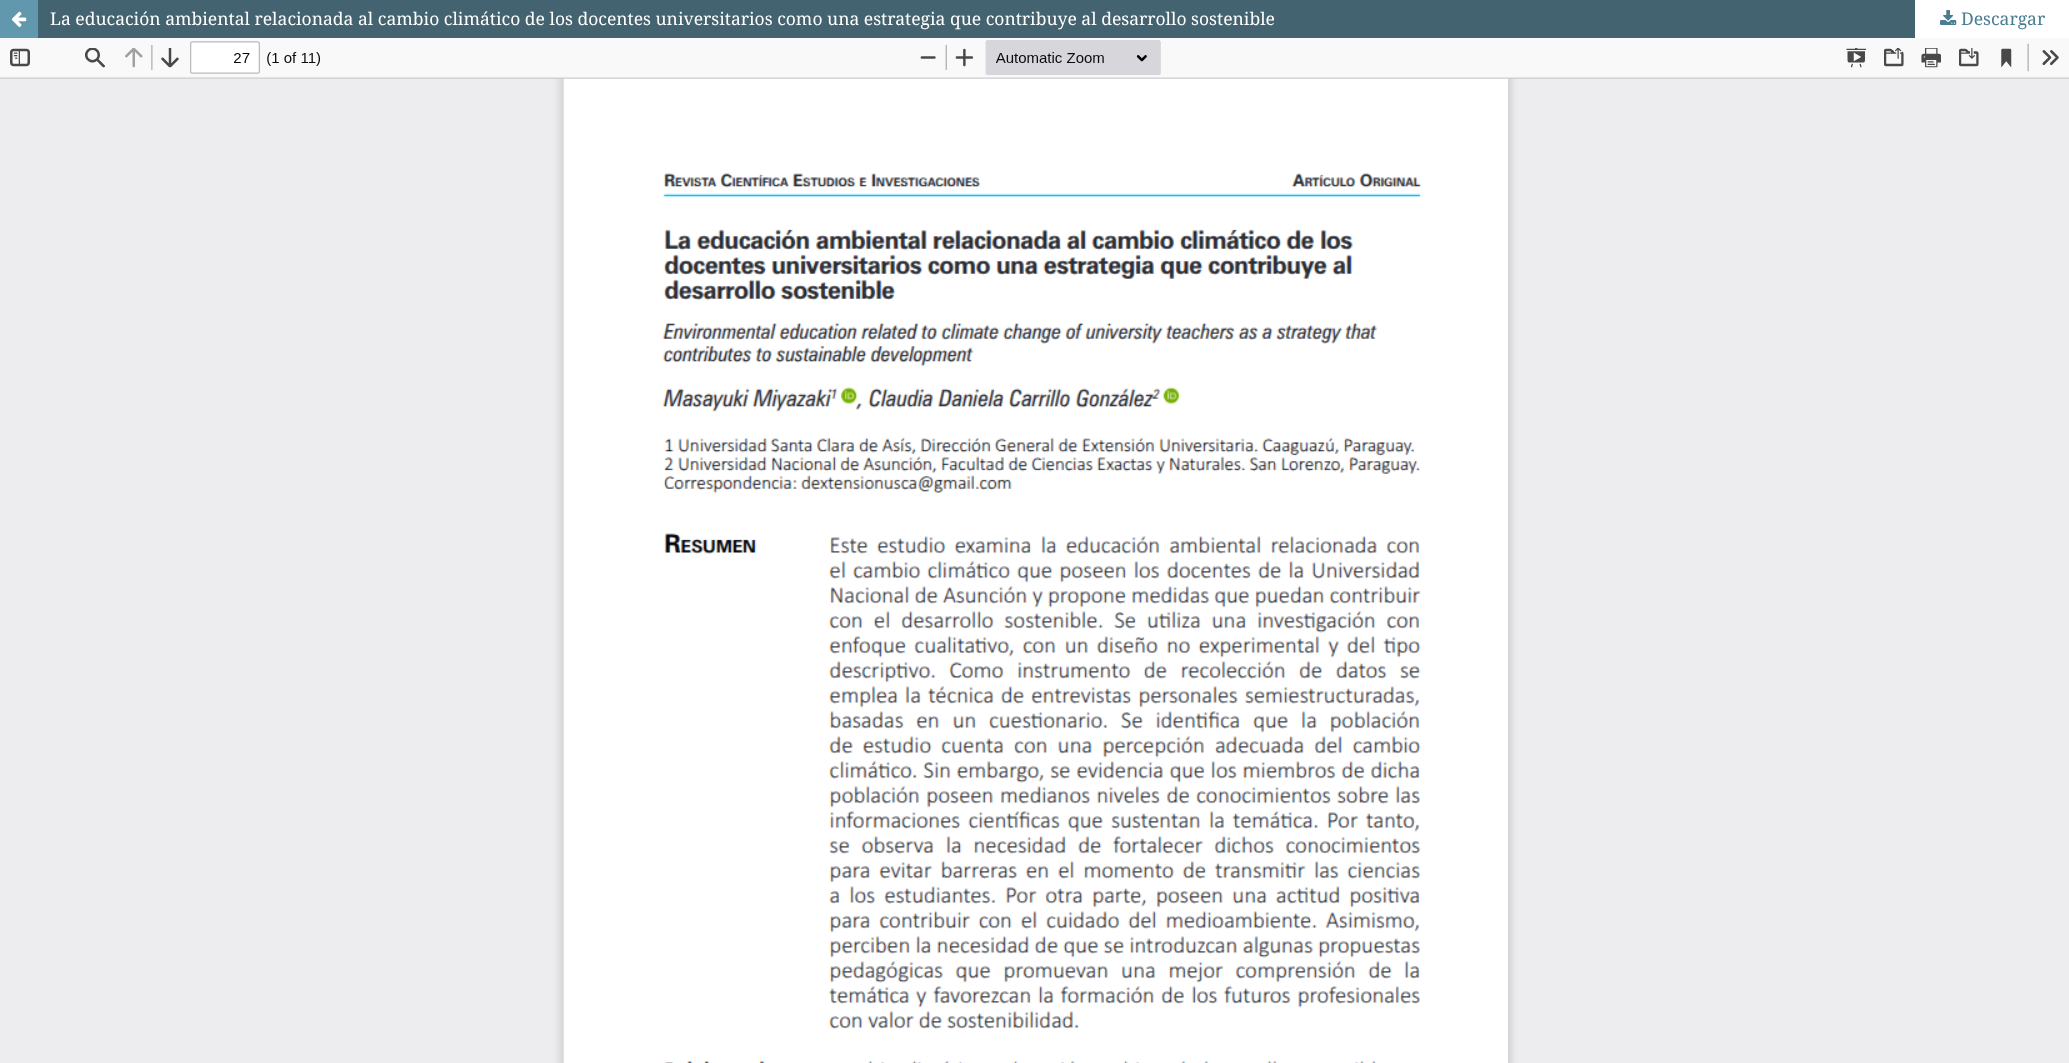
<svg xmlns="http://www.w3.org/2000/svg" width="2069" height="1063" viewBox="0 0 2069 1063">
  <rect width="100%" height="100%" fill="rgb(255,255,255)"/>
  <rect x="38" y="0" width="1877" height="38" fill="rgb(67,99,112)"/>
  <rect x="0" y="0" width="38" height="38" fill="rgb(98,152,174)"/>
  <image x="11" y="11" width="16" height="16" href="pic1.png"/>
  <text x="50" y="25" font-family="Noto Serif" font-size="17.5" fill="rgb(255,255,255)">La educación ambiental relacionada al cambio climático de los docentes universitarios como una estrategia que contribuye al desarrollo sostenible</text>
  <image x="1940" y="10" width="17" height="15" href="pic2.png"/>
  <text x="1961" y="25" font-family="Noto Serif" font-size="17.5" fill="rgb(75,125,146)">Descargar</text>
  <image x="0" y="38" width="2069" height="1025" href="pic3.png"/>
</svg>
